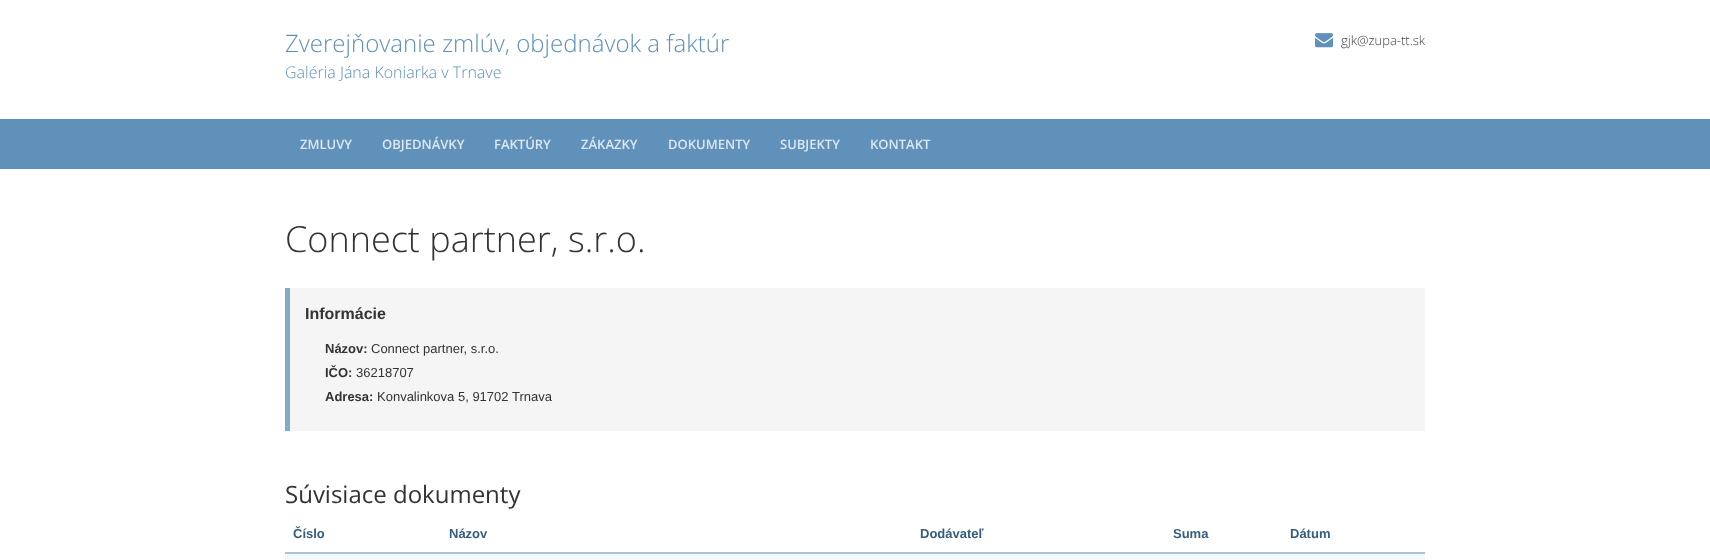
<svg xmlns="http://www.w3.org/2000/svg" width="1710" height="560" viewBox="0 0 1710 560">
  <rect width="100%" height="100%" fill="rgb(255,255,255)"/>
  <text x="285" y="52" font-family="Open Sans" font-size="24" font-weight="300" fill="rgb(96,145,186)">Zverejňovanie zmlúv, objednávok a faktúr</text>
  <text x="285" y="78" font-family="Open Sans" font-size="16" font-weight="300" fill="rgb(96,145,186)">Galéria Jána Koniarka v Trnave</text>
  <image x="1315" y="33" width="18" height="15" href="pic1.png"/>
  <text x="1341" y="45" font-family="Open Sans" font-size="13" font-weight="300" fill="rgb(68,68,68)">gjk@zupa-tt.sk</text>
  <rect x="0" y="119" width="1710" height="50" fill="rgb(96,145,186)"/>
  <g font-family="Open Sans" font-size="13" font-weight="600" fill="rgb(220,231,240)">
    <text x="300" y="149">ZMLUVY</text>
    <text x="382" y="149">OBJEDNÁVKY</text>
    <text x="494" y="149">FAKTÚRY</text>
    <text x="581" y="149">ZÁKAZKY</text>
    <text x="668" y="149">DOKUMENTY</text>
    <text x="780" y="149">SUBJEKTY</text>
    <text x="870" y="149">KONTAKT</text>
  </g>
  <text x="285" y="252" font-family="Open Sans" font-size="36" font-weight="300" fill="rgb(51,51,51)">Connect partner, s.r.o.</text>
  <rect x="290" y="288" width="1135" height="143" fill="rgb(245,245,245)"/>
  <rect x="285" y="288" width="5" height="143" fill="rgb(132,170,201)"/>
  <text x="305" y="319" font-family="Liberation Sans" font-size="16" font-weight="bold" fill="rgb(51,51,51)">Informácie</text>
  <text x="325" y="353" font-family="Liberation Sans" font-size="13" font-weight="bold" fill="rgb(51,51,51)">Názov:</text>
  <text x="371" y="353" font-family="Liberation Sans" font-size="13" fill="rgb(51,51,51)">Connect partner, s.r.o.</text>
  <text x="325" y="377" font-family="Liberation Sans" font-size="13" font-weight="bold" fill="rgb(51,51,51)">IČO:</text>
  <text x="356" y="377" font-family="Liberation Sans" font-size="13" fill="rgb(51,51,51)">36218707</text>
  <text x="325" y="401" font-family="Liberation Sans" font-size="13" font-weight="bold" fill="rgb(51,51,51)">Adresa:</text>
  <text x="377" y="401" font-family="Liberation Sans" font-size="13" fill="rgb(51,51,51)">Konvalinkova 5, 91702 Trnava</text>
  <text x="285" y="503" font-family="Open Sans" font-size="24" fill="rgb(51,51,51)">Súvisiace dokumenty</text>
  <g font-family="Liberation Sans" font-size="13" font-weight="bold" fill="rgb(54,93,126)">
    <text x="293" y="538">Číslo</text>
    <text x="449" y="538">Názov</text>
    <text x="920" y="538">Dodávateľ</text>
    <text x="1173" y="538">Suma</text>
  </g>
  <rect x="285" y="552" width="1140" height="2" fill="rgb(167,194,217)"/>
  <text x="1290" y="538" font-family="Liberation Sans" font-size="13" font-weight="bold" fill="rgb(54,93,126)">Dátum</text>
  <rect x="285" y="554" width="1140" height="6" fill="rgb(245,248,251)"/>
</svg>
